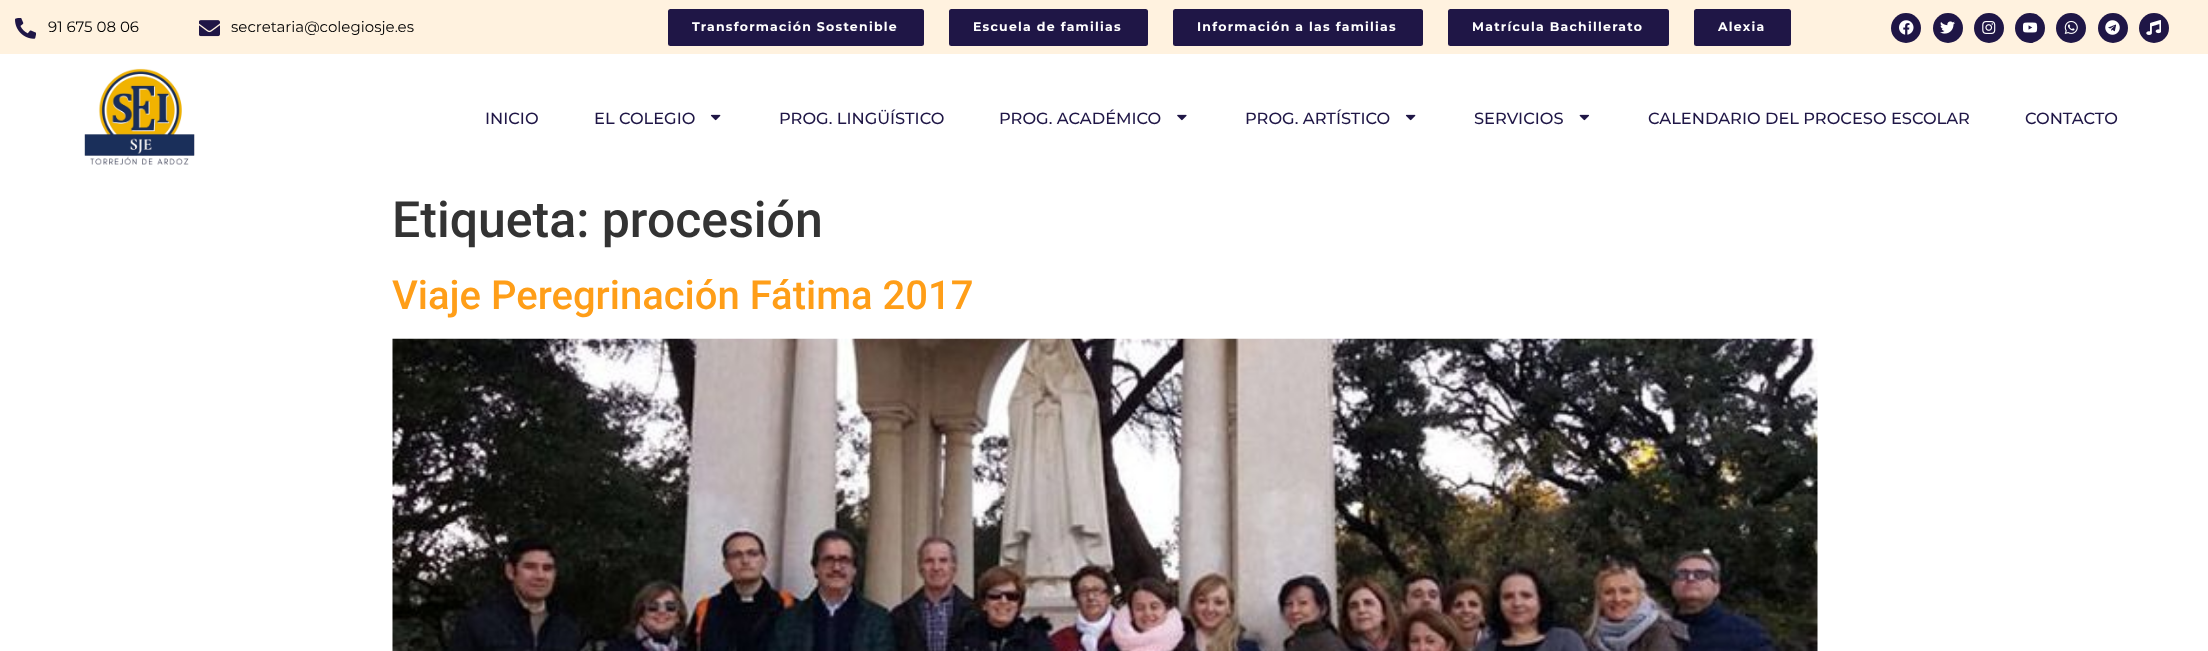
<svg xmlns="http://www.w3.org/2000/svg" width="2208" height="651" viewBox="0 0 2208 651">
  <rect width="100%" height="100%" fill="rgb(255,255,255)"/>
  <rect x="0" y="0" width="2208" height="54" fill="rgb(255,242,223)"/>
  <image x="15" y="18" width="21" height="21" href="pic1.png"/>
  <text x="48" y="32" font-family="Montserrat" font-size="15" fill="rgb(0,0,0)">91 675 08 06</text>
  <image x="199" y="20" width="21" height="17" href="pic2.png"/>
  <text x="231" y="32" font-family="Montserrat" font-size="15" fill="rgb(0,0,0)">secretaria@colegiosje.es</text>
  <rect x="668" y="9" width="256" height="37" rx="2.5" fill="rgb(31,22,70)"/>
  <text x="692" y="31" font-family="Montserrat" font-size="12.5" font-weight="bold" letter-spacing="1.25" fill="rgb(255,255,255)">Transformación Sostenible</text>
  <rect x="949" y="9" width="199" height="37" rx="2.5" fill="rgb(31,22,70)"/>
  <text x="973" y="31" font-family="Montserrat" font-size="12.5" font-weight="bold" letter-spacing="1.25" fill="rgb(255,255,255)">Escuela de familias</text>
  <rect x="1173" y="9" width="250" height="37" rx="2.5" fill="rgb(31,22,70)"/>
  <text x="1197" y="31" font-family="Montserrat" font-size="12.5" font-weight="bold" letter-spacing="1.25" fill="rgb(255,255,255)">Información a las familias</text>
  <rect x="1448" y="9" width="221" height="37" rx="2.5" fill="rgb(31,22,70)"/>
  <text x="1472" y="31" font-family="Montserrat" font-size="12.5" font-weight="bold" letter-spacing="1.25" fill="rgb(255,255,255)">Matrícula Bachillerato</text>
  <rect x="1694" y="9" width="97" height="37" rx="2.5" fill="rgb(31,22,70)"/>
  <text x="1718" y="31" font-family="Montserrat" font-size="12.5" font-weight="bold" letter-spacing="1.25" fill="rgb(255,255,255)">Alexia</text>
  <circle cx="1906" cy="28" r="15" fill="rgb(31,22,70)"/>
  <image x="1899" y="20" width="15" height="15" href="pic3.png"/>
  <circle cx="1948" cy="28" r="15" fill="rgb(31,22,70)"/>
  <image x="1940" y="21" width="15" height="13" href="pic4.png"/>
  <circle cx="1989" cy="28" r="15" fill="rgb(31,22,70)"/>
  <image x="1982" y="21" width="14" height="13" href="pic5.png"/>
  <circle cx="2030" cy="28" r="15" fill="rgb(31,22,70)"/>
  <image x="2023" y="22" width="15" height="11" href="pic6.png"/>
  <circle cx="2071" cy="28" r="15" fill="rgb(31,22,70)"/>
  <image x="2064" y="20" width="14" height="14" href="pic7.png"/>
  <circle cx="2113" cy="28" r="15" fill="rgb(31,22,70)"/>
  <image x="2105" y="20" width="15" height="15" href="pic8.png"/>
  <circle cx="2154" cy="28" r="15" fill="rgb(31,22,70)"/>
  <image x="2146" y="20" width="15" height="15" href="pic9.png"/>
  <image x="84" y="68" width="111" height="97" href="pic10.png"/>
  <g font-family="Montserrat" font-size="16.25" font-weight="500" fill="rgb(31,22,70)">
    <text x="485" y="124">INICIO</text>
    <text x="594" y="124">EL COLEGIO</text>
  </g>
  <image x="710" y="114" width="11" height="7" href="pic11.png"/>
  <g font-family="Montserrat" font-size="16.25" font-weight="500" fill="rgb(31,22,70)">
    <text x="779" y="124">PROG. LINGÜÍSTICO</text>
    <text x="999" y="124">PROG. ACADÉMICO</text>
  </g>
  <image x="1177" y="114" width="10" height="7" href="pic12.png"/>
  <text x="1245" y="124" font-family="Montserrat" font-size="16.25" font-weight="500" fill="rgb(31,22,70)">PROG. ARTÍSTICO</text>
  <image x="1405" y="114" width="11" height="7" href="pic11.png"/>
  <text x="1474" y="124" font-family="Montserrat" font-size="16.25" font-weight="500" fill="rgb(31,22,70)">SERVICIOS</text>
  <image x="1579" y="114" width="11" height="7" href="pic13.png"/>
  <g font-family="Montserrat" font-size="16.25" font-weight="500" fill="rgb(31,22,70)">
    <text x="1648" y="124">CALENDARIO DEL PROCESO ESCOLAR</text>
    <text x="2025" y="124">CONTACTO</text>
  </g>
  <text x="392" y="237" font-family="Roboto" font-size="50" font-weight="500" fill="rgb(51,51,51)">Etiqueta: procesión</text>
  <text x="392" y="309" font-family="Roboto" font-size="40" font-weight="500" fill="rgb(255,158,24)">Viaje Peregrinación Fátima 2017</text>
  <image x="392" y="338" width="1426" height="313" href="pic14.png"/>
</svg>
